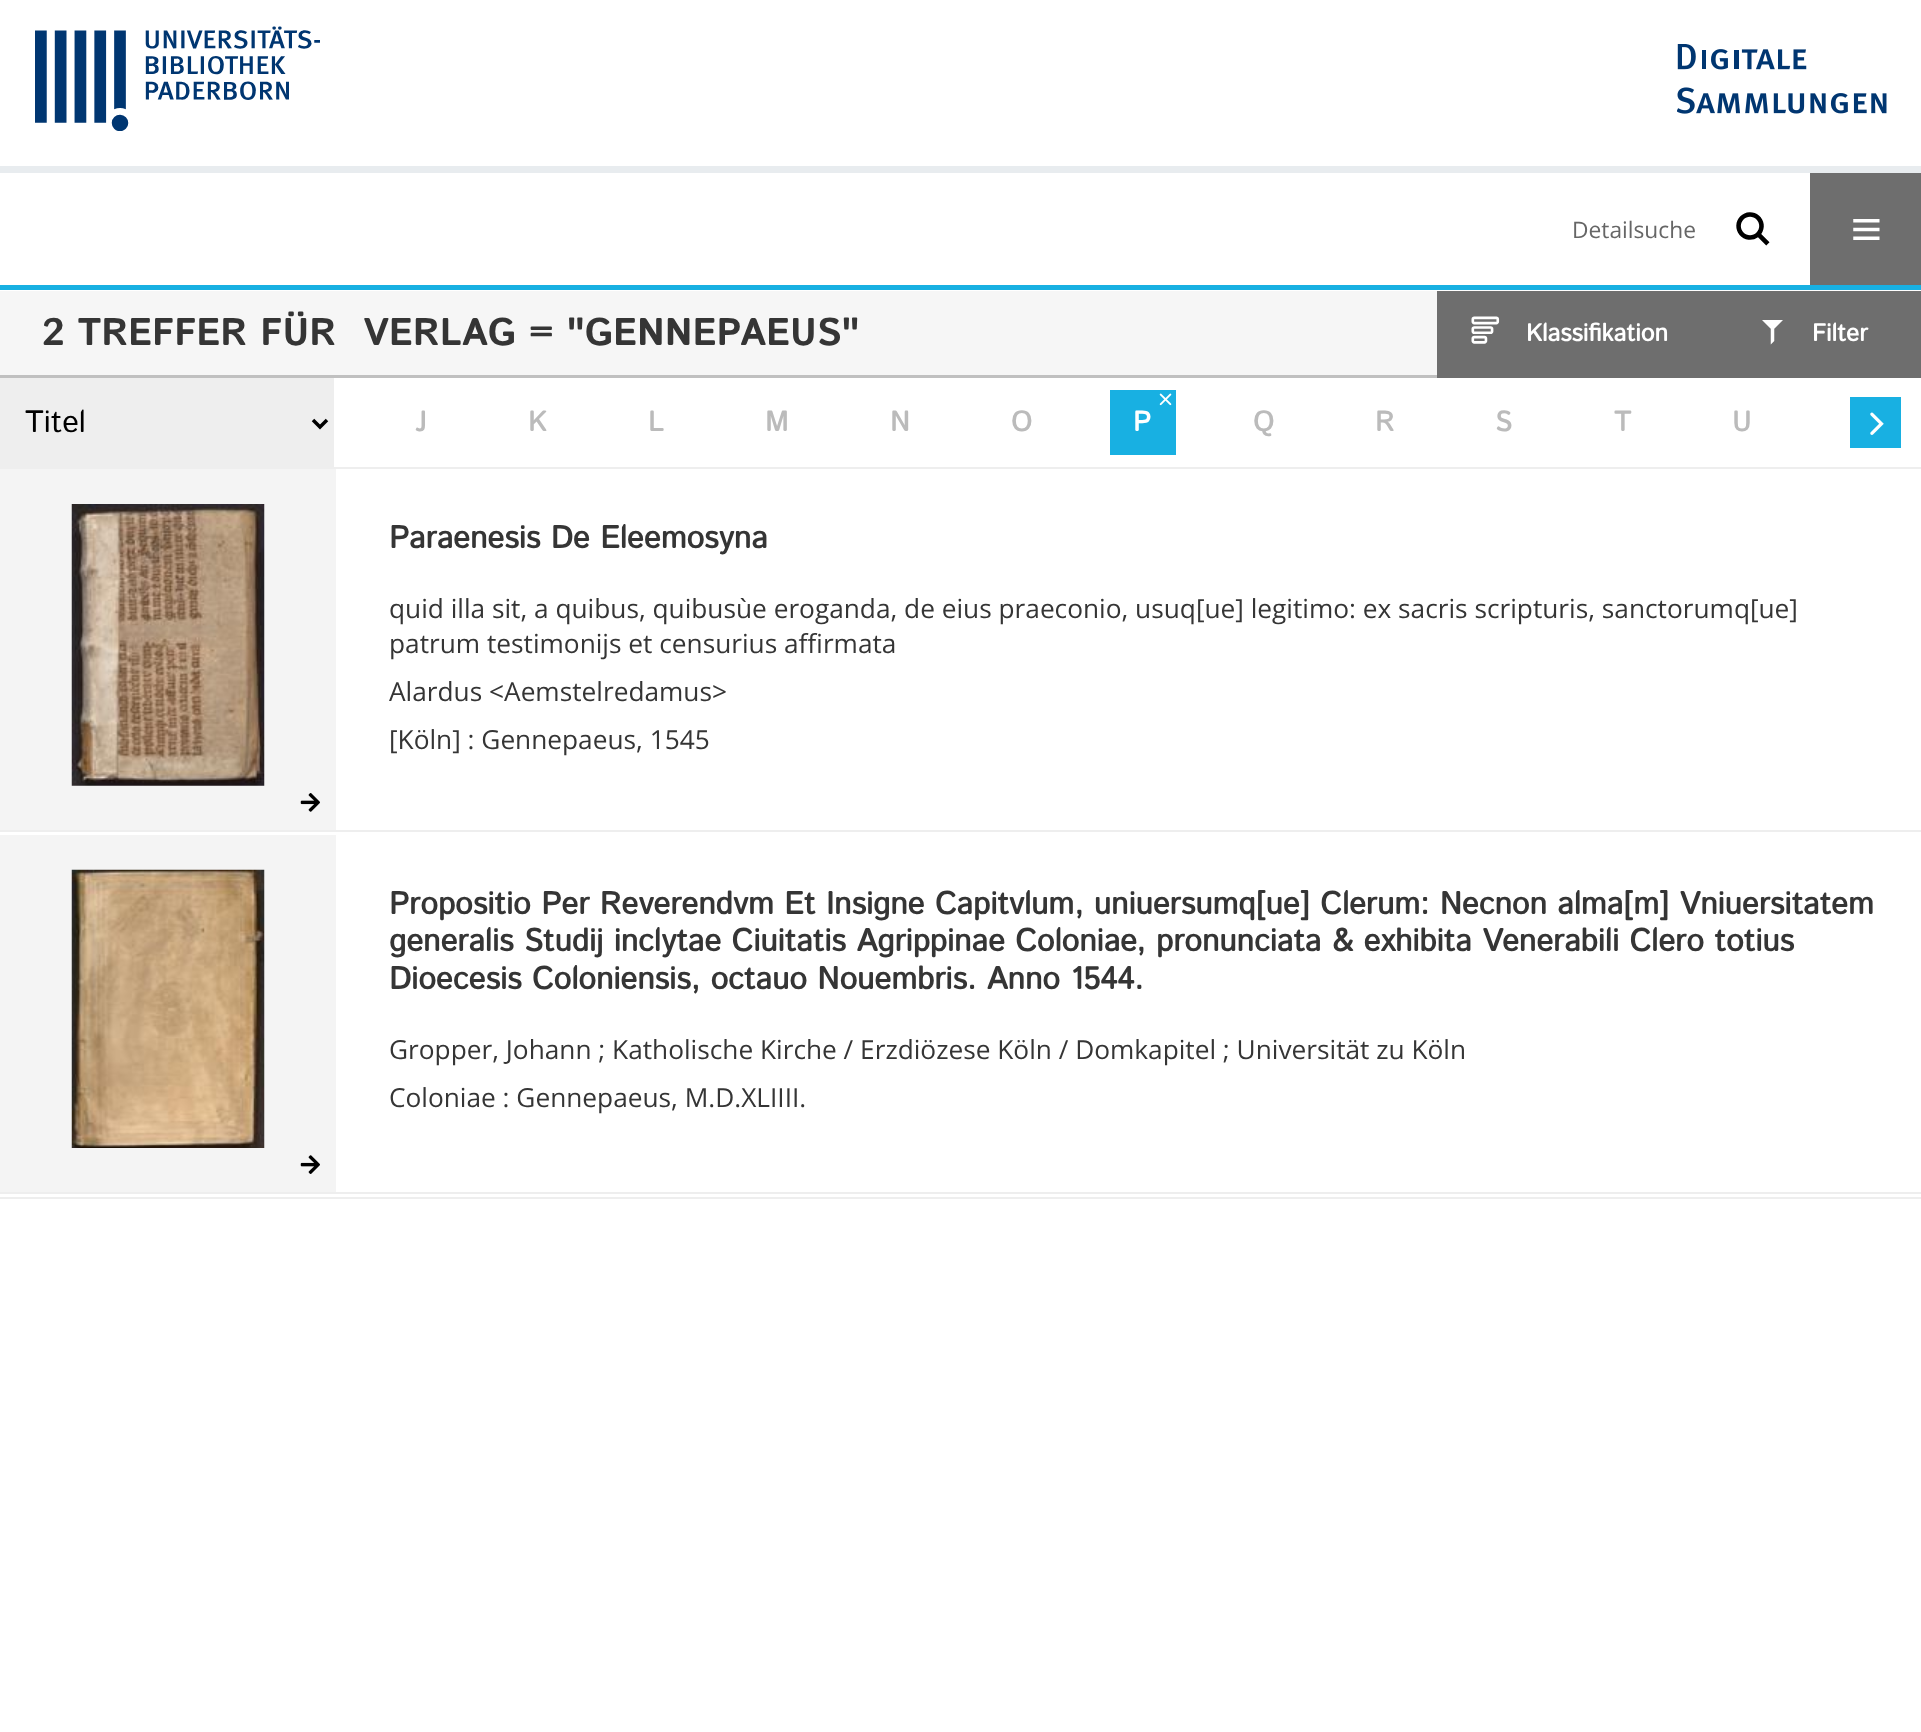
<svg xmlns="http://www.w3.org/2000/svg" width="1921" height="1732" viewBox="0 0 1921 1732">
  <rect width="100%" height="100%" fill="rgb(255,255,255)"/>
  <rect x="0" y="166" width="1921" height="7" fill="rgb(232,236,239)"/>
  <image x="35" y="26" width="285" height="105" href="pic1.png"/>
  <image x="1677" y="44" width="210" height="70" href="pic2.png"/>
  <text x="1572" y="238" font-family="Open Sans" font-size="22.75" fill="rgb(102,102,102)">Detailsuche</text>
  <image x="1736" y="212" width="34" height="34" href="pic3.png"/>
  <rect x="1810" y="173" width="111" height="112" fill="rgb(110,110,110)"/>
  <image x="1853" y="219" width="27" height="21" href="pic4.png"/>
  <rect x="0" y="285" width="1921" height="5" fill="rgb(24,176,226)"/>
  <rect x="0" y="291" width="1437" height="84" fill="rgb(246,246,246)"/>
  <rect x="0" y="375" width="1437" height="3" fill="rgb(192,192,192)"/>
  <g font-family="'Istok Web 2'" font-size="38.5" font-weight="bold" fill="rgb(53,53,53)">
    <text x="42" y="345">2 TREFFER FÜR</text>
    <text x="363" y="345">VERLAG = "GENNEPAEUS"</text>
  </g>
  <rect x="1437" y="291" width="484" height="87" fill="rgb(110,110,110)"/>
  <image x="1471" y="316" width="29" height="28" href="pic5.png"/>
  <text x="1526" y="341" font-family="Istok Web" font-size="24.5" font-weight="bold" fill="rgb(255,255,255)">Klassifikation</text>
  <image x="1762" y="320" width="21" height="25" href="pic6.png"/>
  <text x="1812" y="341" font-family="Istok Web" font-size="24.5" font-weight="bold" fill="rgb(255,255,255)">Filter</text>
  <rect x="334" y="467" width="1587" height="2" fill="rgb(238,238,238)"/>
  <rect x="0" y="378" width="334" height="91" fill="rgb(238,238,238)"/>
  <path d="M313 420L320 427L327 420" fill="none" stroke="rgb(0,0,0)" stroke-width="3.5"/>
  <text x="25" y="432" font-family="Istok Web" font-size="31" fill="rgb(0,0,0)">Titel</text>
  <g font-family="Istok Web" font-size="28" font-weight="bold" fill="rgb(187,187,187)">
    <text x="415" y="431">J</text>
    <text x="528" y="431">K</text>
    <text x="648" y="431">L</text>
    <text x="765" y="431">M</text>
    <text x="890" y="431">N</text>
    <text x="1011" y="431">O</text>
  </g>
  <rect x="1110" y="390" width="66" height="65" fill="rgb(24,176,226)"/>
  <image x="1159" y="393" width="13" height="13" href="pic7.png"/>
  <text x="1133" y="431" font-family="Istok Web" font-size="28" font-weight="bold" fill="rgb(255,255,255)">P</text>
  <g font-family="Istok Web" font-size="28" font-weight="bold" fill="rgb(187,187,187)">
    <text x="1253" y="431">Q</text>
    <text x="1375" y="431">R</text>
    <text x="1495" y="431">S</text>
    <text x="1614" y="431">T</text>
    <text x="1732" y="431">U</text>
  </g>
  <rect x="1850" y="397" width="51" height="51" fill="rgb(24,176,226)"/>
  <image x="1870" y="412" width="14" height="23" href="pic8.png"/>
  <rect x="0" y="830" width="1921" height="2" fill="rgb(238,238,238)"/>
  <rect x="0" y="469" width="336" height="361" fill="rgb(244,244,244)"/>
  <image x="71" y="504" width="194" height="282" href="pic9.png"/>
  <image x="300" y="793" width="20" height="19" href="pic10.png"/>
  <text x="389" y="548" font-family="Istok Web" font-size="31.5" font-weight="bold" fill="rgb(53,53,53)">Paraenesis De Eleemosyna</text>
  <g font-family="Open Sans" font-size="26.25" fill="rgb(53,53,53)">
    <text>
      <tspan x="389" y="618">quid illa sit, a quibus, quibusùe eroganda, de eius praeconio, usuq[ue] legitimo: ex sacris scripturis, sanctorumq[ue]</tspan>
      <tspan x="389" y="653">patrum testimonijs et censurius affirmata</tspan>
      <tspan x="389" y="701">Alardus &lt;Aemstelredamus&gt;</tspan>
      <tspan x="389" y="749">[Köln] : Gennepaeus, 1545</tspan>
    </text>
  </g>
  <rect x="0" y="1192" width="1921" height="2" fill="rgb(238,238,238)"/>
  <rect x="0" y="835" width="336" height="357" fill="rgb(244,244,244)"/>
  <image x="71" y="869" width="194" height="279" href="pic11.png"/>
  <image x="300" y="1155" width="20" height="19" href="pic12.png"/>
  <g font-family="Istok Web" font-size="31.5" font-weight="bold" fill="rgb(53,53,53)">
    <text>
      <tspan x="389" y="914">Propositio Per Reverendvm Et Insigne Capitvlum, uniuersumq[ue] Clerum: Necnon alma[m] Vniuersitatem</tspan>
      <tspan x="389" y="951">generalis Studij inclytae Ciuitatis Agrippinae Coloniae, pronunciata &amp; exhibita Venerabili Clero totius</tspan>
      <tspan x="389" y="989">Dioecesis Coloniensis, octauo Nouembris. Anno 1544.</tspan>
    </text>
  </g>
  <g font-family="Open Sans" font-size="26.25" fill="rgb(53,53,53)">
    <text>
      <tspan x="389" y="1059">Gropper, Johann ; Katholische Kirche / Erzdiözese Köln / Domkapitel ; Universität zu Köln</tspan>
      <tspan x="389" y="1107">Coloniae : Gennepaeus, M.D.XLIIII.</tspan>
    </text>
  </g>
  <rect x="0" y="1197" width="1921" height="2" fill="rgb(238,238,238)"/>
</svg>
